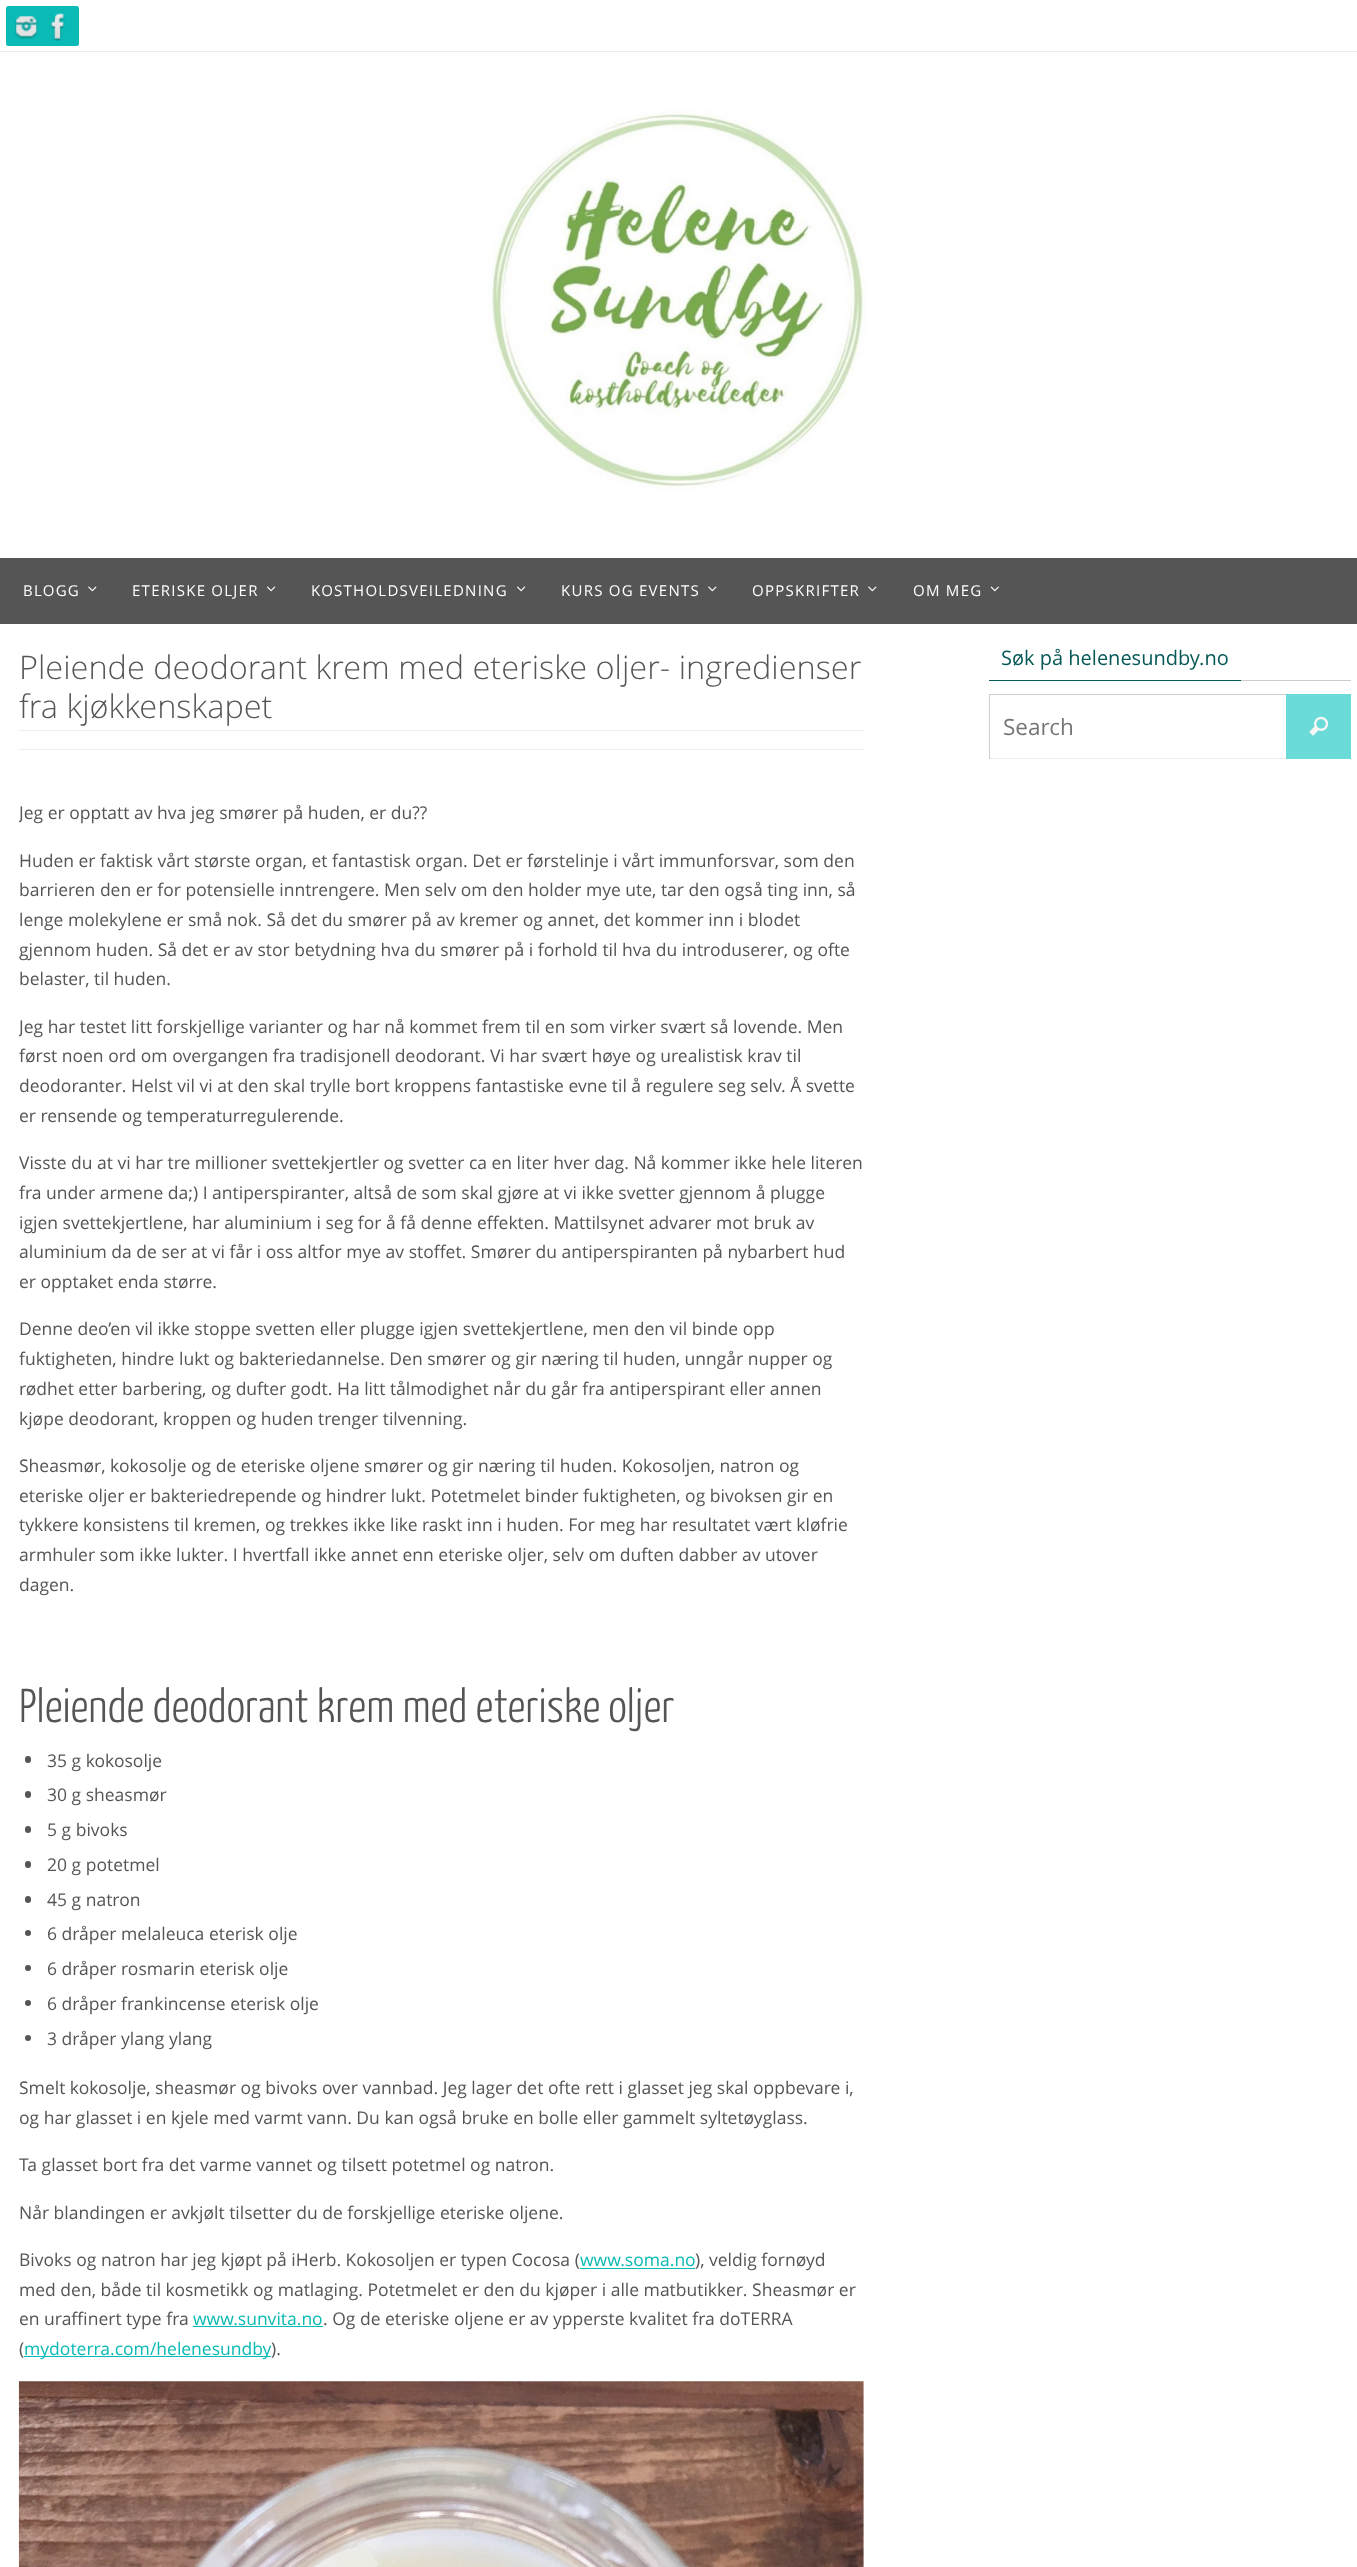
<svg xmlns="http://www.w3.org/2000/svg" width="1357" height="2567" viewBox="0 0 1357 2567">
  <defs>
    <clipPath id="clip1"><rect x="19" y="648" width="845" height="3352"/></clipPath>
  </defs>
  <rect width="100%" height="100%" fill="rgb(255,255,255)"/>
  <rect x="0" y="51" width="1357" height="1" fill="rgb(235,235,235)"/>
  <rect x="6" y="6" width="40" height="40" rx="2.5" fill="rgb(10,186,181)"/>
  <image x="15" y="16" width="23" height="23" href="pic1.png"/>
  <rect x="39" y="6" width="40" height="40" rx="2.5" fill="rgb(10,186,181)"/>
  <image x="50" y="13" width="15" height="28" href="pic2.png"/>
  <image x="487" y="109" width="382" height="385" href="pic3.png"/>
  <rect x="0" y="558" width="1357" height="66" fill="rgb(85,85,85)"/>
  <text x="23" y="596" font-family="Open Sans" font-size="15" letter-spacing="1.25" fill="rgb(255,255,255)">BLOGG</text>
  <image x="88" y="586" width="9" height="6" href="pic4.png"/>
  <text x="132" y="596" font-family="Open Sans" font-size="15" letter-spacing="1.25" fill="rgb(255,255,255)">ETERISKE OLJER</text>
  <image x="267" y="586" width="9" height="6" href="pic5.png"/>
  <text x="311" y="596" font-family="Open Sans" font-size="15" letter-spacing="1.25" fill="rgb(255,255,255)">KOSTHOLDSVEILEDNING</text>
  <image x="517" y="586" width="9" height="6" href="pic5.png"/>
  <text x="561" y="596" font-family="Open Sans" font-size="15" letter-spacing="1.25" fill="rgb(255,255,255)">KURS OG EVENTS</text>
  <image x="708" y="586" width="9" height="6" href="pic4.png"/>
  <text x="752" y="596" font-family="Open Sans" font-size="15" letter-spacing="1.25" fill="rgb(255,255,255)">OPPSKRIFTER</text>
  <image x="868" y="586" width="9" height="6" href="pic4.png"/>
  <text x="913" y="596" font-family="Open Sans" font-size="15" letter-spacing="1.25" fill="rgb(255,255,255)">OM MEG</text>
  <image x="990" y="586" width="9" height="6" href="pic6.png"/>
  <g font-family="Open Sans" font-size="32.5" font-weight="300" fill="rgb(85,85,85)">
    <text>
      <tspan x="19" y="679">Pleiende deodorant krem med eteriske oljer- ingredienser</tspan>
      <tspan x="19" y="718">fra kjøkkenskapet</tspan>
    </text>
  </g>
  <rect x="19" y="730" width="845" height="1" fill="rgb(238,238,238)"/>
  <rect x="19" y="749" width="845" height="1" fill="rgb(238,238,238)"/>
  <g clip-path="url(#clip1)">
    <text x="19" y="819" font-family="Open Sans" font-size="17.5" fill="rgb(85,85,85)">Jeg er opptatt av hva jeg smører på huden, er du??</text>
  </g>
  <g font-family="Open Sans" font-size="17.5" fill="rgb(85,85,85)">
    <text>
      <tspan x="19" y="867">Huden er faktisk vårt største organ, et fantastisk organ. Det er førstelinje i vårt immunforsvar, som den</tspan>
      <tspan x="19" y="896">barrieren den er for potensielle inntrengere. Men selv om den holder mye ute, tar den også ting inn, så</tspan>
      <tspan x="19" y="926">lenge molekylene er små nok. Så det du smører på av kremer og annet, det kommer inn i blodet</tspan>
      <tspan x="19" y="956">gjennom huden. Så det er av stor betydning hva du smører på i forhold til hva du introduserer, og ofte</tspan>
      <tspan x="19" y="985">belaster, til huden.</tspan>
    </text>
  </g>
  <g clip-path="url(#clip1)">
    <text x="19" y="1033" font-family="Open Sans" font-size="17.5" fill="rgb(85,85,85)">Jeg har testet litt forskjellige varianter og har nå kommet frem til en som virker svært så lovende. Men</text>
  </g>
  <g font-family="Open Sans" font-size="17.5" fill="rgb(85,85,85)">
    <text>
      <tspan x="19" y="1062">først noen ord om overgangen fra tradisjonell deodorant. Vi har svært høye og urealistisk krav til</tspan>
      <tspan x="19" y="1092">deodoranter. Helst vil vi at den skal trylle bort kroppens fantastiske evne til å regulere seg selv. Å svette</tspan>
      <tspan x="19" y="1122">er rensende og temperaturregulerende.</tspan>
    </text>
    <text>
      <tspan x="19" y="1169">Visste du at vi har tre millioner svettekjertler og svetter ca en liter hver dag. Nå kommer ikke hele literen</tspan>
      <tspan x="19" y="1199">fra under armene da;) I antiperspiranter, altså de som skal gjøre at vi ikke svetter gjennom å plugge</tspan>
      <tspan x="19" y="1229">igjen svettekjertlene, har aluminium i seg for å få denne effekten. Mattilsynet advarer mot bruk av</tspan>
      <tspan x="19" y="1258">aluminium da de ser at vi får i oss altfor mye av stoffet. Smører du antiperspiranten på nybarbert hud</tspan>
      <tspan x="19" y="1288">er opptaket enda større.</tspan>
    </text>
    <text>
      <tspan x="19" y="1335">Denne deo’en vil ikke stoppe svetten eller plugge igjen svettekjertlene, men den vil binde opp</tspan>
      <tspan x="19" y="1365">fuktigheten, hindre lukt og bakteriedannelse. Den smører og gir næring til huden, unngår nupper og</tspan>
      <tspan x="19" y="1395">rødhet etter barbering, og dufter godt. Ha litt tålmodighet når du går fra antiperspirant eller annen</tspan>
      <tspan x="19" y="1425">kjøpe deodorant, kroppen og huden trenger tilvenning.</tspan>
    </text>
    <text>
      <tspan x="19" y="1472">Sheasmør, kokosolje og de eteriske oljene smører og gir næring til huden. Kokosoljen, natron og</tspan>
      <tspan x="19" y="1502">eteriske oljer er bakteriedrepende og hindrer lukt. Potetmelet binder fuktigheten, og bivoksen gir en</tspan>
      <tspan x="19" y="1531">tykkere konsistens til kremen, og trekkes ikke like raskt inn i huden. For meg har resultatet vært kløfrie</tspan>
      <tspan x="19" y="1561">armhuler som ikke lukter. I hvertfall ikke annet enn eteriske oljer, selv om duften dabber av utover</tspan>
      <tspan x="19" y="1591">dagen.</tspan>
    </text>
  </g>
  <text x="19" y="1722" font-family="Yanone Kaffeesatz" font-size="47.5" font-weight="300" fill="rgb(85,85,85)">Pleiende deodorant krem med eteriske oljer</text>
  <rect x="25" y="1756" width="6" height="7" rx="3" fill="rgb(85,85,85)"/>
  <text x="47" y="1767" font-family="Open Sans" font-size="17.5" fill="rgb(85,85,85)">35 g kokosolje</text>
  <rect x="25" y="1791" width="6" height="7" rx="3" fill="rgb(85,85,85)"/>
  <text x="47" y="1801" font-family="Open Sans" font-size="17.5" fill="rgb(85,85,85)">30 g sheasmør</text>
  <rect x="25" y="1826" width="6" height="7" rx="3" fill="rgb(85,85,85)"/>
  <text x="47" y="1836" font-family="Open Sans" font-size="17.5" fill="rgb(85,85,85)">5 g bivoks</text>
  <rect x="25" y="1861" width="6" height="7" rx="3" fill="rgb(85,85,85)"/>
  <text x="47" y="1871" font-family="Open Sans" font-size="17.5" fill="rgb(85,85,85)">20 g potetmel</text>
  <rect x="25" y="1896" width="6" height="7" rx="3" fill="rgb(85,85,85)"/>
  <text x="47" y="1906" font-family="Open Sans" font-size="17.5" fill="rgb(85,85,85)">45 g natron</text>
  <circle cx="28" cy="1933" r="3" fill="rgb(85,85,85)"/>
  <text x="47" y="1940" font-family="Open Sans" font-size="17.5" fill="rgb(85,85,85)">6 dråper melaleuca eterisk olje</text>
  <circle cx="28" cy="1968" r="3" fill="rgb(85,85,85)"/>
  <text x="47" y="1975" font-family="Open Sans" font-size="17.5" fill="rgb(85,85,85)">6 dråper rosmarin eterisk olje</text>
  <circle cx="28" cy="2003" r="3" fill="rgb(85,85,85)"/>
  <text x="47" y="2010" font-family="Open Sans" font-size="17.5" fill="rgb(85,85,85)">6 dråper frankincense eterisk olje</text>
  <circle cx="28" cy="2038" r="3" fill="rgb(85,85,85)"/>
  <g font-family="Open Sans" font-size="17.5" fill="rgb(85,85,85)">
    <text x="47" y="2045">3 dråper ylang ylang</text>
    <text>
      <tspan x="19" y="2094">Smelt kokosolje, sheasmør og bivoks over vannbad. Jeg lager det ofte rett i glasset jeg skal oppbevare i,</tspan>
      <tspan x="19" y="2124">og har glasset i en kjele med varmt vann. Du kan også bruke en bolle eller gammelt syltetøyglass.</tspan>
    </text>
    <text x="19" y="2171">Ta glasset bort fra det varme vannet og tilsett potetmel og natron.</text>
    <text x="19" y="2219">Når blandingen er avkjølt tilsetter du de forskjellige eteriske oljene.</text>
    <text x="19" y="2266">Bivoks og natron har jeg kjøpt på iHerb. Kokosoljen er typen Cocosa (</text>
  </g>
  <text x="580" y="2266" font-family="Open Sans" font-size="17.5" fill="rgb(10,186,181)">www.soma.no</text>
  <rect x="580" y="2268" width="115" height="1" fill="rgb(10,186,181)"/>
  <g font-family="Open Sans" font-size="17.5" fill="rgb(85,85,85)">
    <text x="695" y="2266">), veldig fornøyd</text>
    <text>
      <tspan x="19" y="2296">med den, både til kosmetikk og matlaging. Potetmelet er den du kjøper i alle matbutikker. Sheasmør er</tspan>
      <tspan x="19" y="2325">en uraffinert type fra</tspan>
    </text>
  </g>
  <text x="193" y="2325" font-family="Open Sans" font-size="17.5" fill="rgb(10,186,181)">www.sunvita.no</text>
  <rect x="193" y="2326" width="130" height="1" fill="rgb(10,186,181)"/>
  <g font-family="Open Sans" font-size="17.5" fill="rgb(85,85,85)">
    <text x="323" y="2325">. Og de eteriske oljene er av ypperste kvalitet fra doTERRA</text>
    <text x="19" y="2355">(</text>
  </g>
  <rect x="24" y="2356" width="247" height="1" fill="rgb(10,186,181)"/>
  <text x="24" y="2355" font-family="Open Sans" font-size="17.5" fill="rgb(10,186,181)">mydoterra.com/helenesundby</text>
  <text x="271" y="2355" font-family="Open Sans" font-size="17.5" fill="rgb(85,85,85)">).</text>
  <image x="18" y="2381" width="846" height="186" href="pic7.png"/>
  <rect x="1241" y="680" width="110" height="1" fill="rgb(204,204,204)"/>
  <rect x="989" y="680" width="252" height="1" fill="rgb(7,89,87)"/>
  <text x="1001" y="665" font-family="Open Sans" font-size="20" fill="rgb(7,89,87)">Søk på helenesundby.no</text>
  <rect x="1286" y="694" width="65" height="65" fill="rgb(106,219,216)"/>
  <rect x="989" y="694" width="297" height="1" fill="rgb(204,204,204)"/>
  <rect x="989" y="758" width="297" height="1" fill="rgb(238,238,238)"/>
  <rect x="989" y="694" width="1" height="65" fill="rgb(204,204,204)"/>
  <text x="1003" y="735" font-family="Open Sans" font-size="22.5" fill="rgb(117,117,117)">Search</text>
  <image x="1309" y="716" width="20" height="20" href="pic8.png"/>
</svg>
